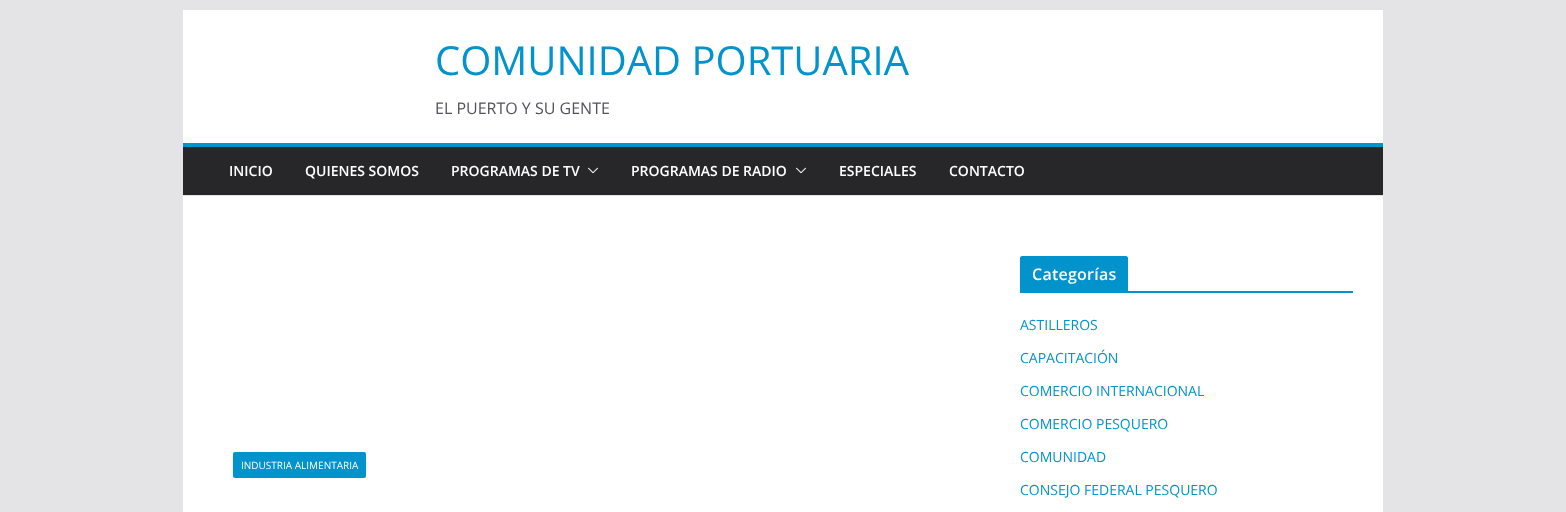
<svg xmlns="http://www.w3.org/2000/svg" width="1566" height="512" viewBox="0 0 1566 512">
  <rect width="100%" height="100%" fill="rgb(228,228,231)"/>
  <rect x="183" y="10" width="1200" height="133" fill="rgb(255,255,255)"/>
  <text x="435" y="75" font-family="Open Sans" font-size="40" fill="rgb(2,146,204)">COMUNIDAD PORTUARIA</text>
  <text x="435" y="114" font-family="Open Sans" font-size="16" fill="rgb(82,82,91)">EL PUERTO Y SU GENTE</text>
  <rect x="183" y="147" width="1200" height="48" fill="rgb(39,39,42)"/>
  <rect x="183" y="143" width="1200" height="4" fill="rgb(2,146,204)"/>
  <g font-family="Open Sans" font-size="14" font-weight="600" fill="rgb(255,255,255)">
    <text x="229" y="176">INICIO</text>
    <text x="305" y="176">QUIENES SOMOS</text>
    <text x="451" y="176">PROGRAMAS DE TV</text>
  </g>
  <image x="588" y="167" width="10" height="7" href="pic1.png"/>
  <text x="631" y="176" font-family="Open Sans" font-size="14" font-weight="600" fill="rgb(255,255,255)">PROGRAMAS DE RADIO</text>
  <image x="796" y="167" width="10" height="7" href="pic1.png"/>
  <g font-family="Open Sans" font-size="14" font-weight="600" fill="rgb(255,255,255)">
    <text x="839" y="176">ESPECIALES</text>
    <text x="949" y="176">CONTACTO</text>
  </g>
  <rect x="183" y="196" width="1200" height="316" fill="rgb(255,255,255)"/>
  <rect x="233" y="452" width="133" height="26" rx="2" fill="rgb(2,146,204)"/>
  <text x="241" y="469" font-family="Open Sans" font-size="10" fill="rgb(255,255,255)">INDUSTRIA ALIMENTARIA</text>
  <rect x="1020" y="291" width="333" height="2" fill="rgb(2,146,204)"/>
  <path d="M1022 256H1126C1127 256 1128 257 1128 258V291H1020V258C1020 257 1021 256 1022 256Z" fill="rgb(2,146,204)"/>
  <text x="1032" y="280" font-family="Open Sans" font-size="16" font-weight="600" letter-spacing="0.25" fill="rgb(255,255,255)">Categorías</text>
  <g font-family="Open Sans" font-size="14" fill="rgb(2,146,204)">
    <text x="1020" y="330">ASTILLEROS</text>
    <text x="1020" y="363">CAPACITACIÓN</text>
    <text x="1020" y="396">COMERCIO INTERNACIONAL</text>
    <text x="1020" y="429">COMERCIO PESQUERO</text>
    <text x="1020" y="462">COMUNIDAD</text>
    <text x="1020" y="495">CONSEJO FEDERAL PESQUERO</text>
  </g>
</svg>
